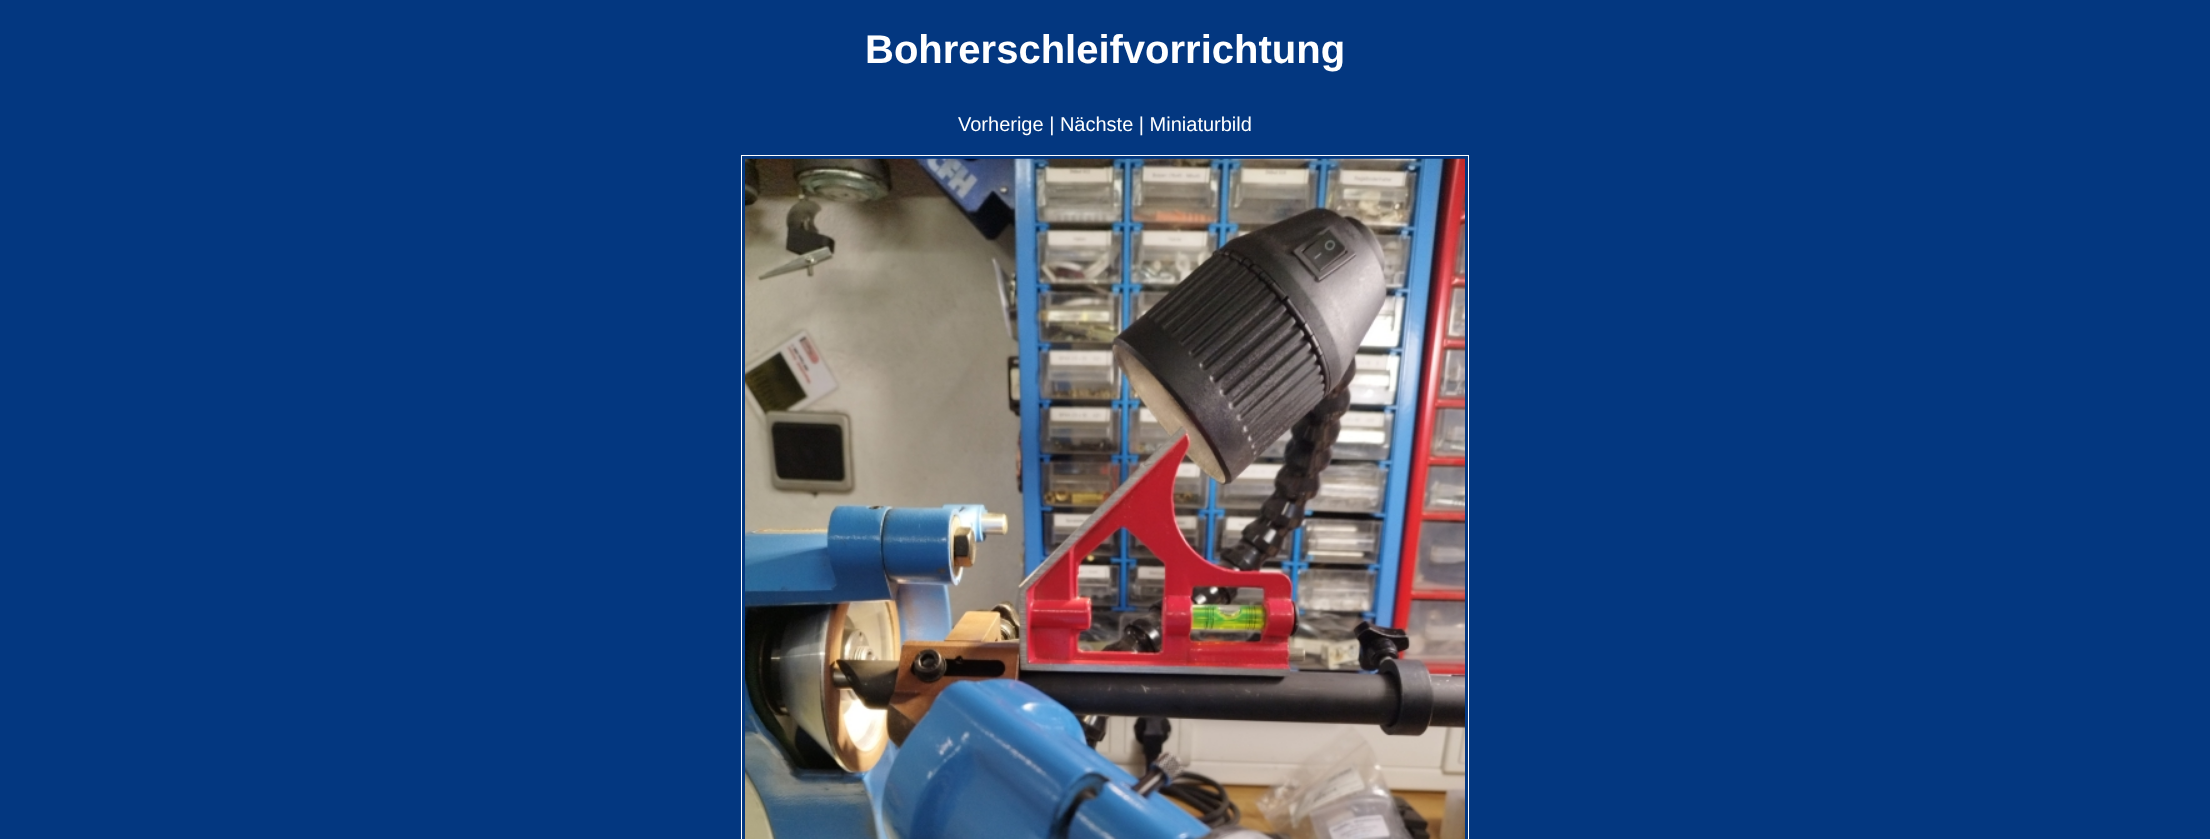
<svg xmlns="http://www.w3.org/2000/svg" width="2210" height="839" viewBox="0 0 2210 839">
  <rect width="100%" height="100%" fill="rgb(3,55,128)"/>
  <text x="865" y="63" font-family="Liberation Sans" font-size="40" font-weight="bold" fill="rgb(255,255,255)">Bohrerschleifvorrichtung</text>
  <text x="958" y="131" font-family="Liberation Sans" font-size="20" fill="rgb(255,255,255)">Vorherige | Nächste | Miniaturbild</text>
  <rect x="741" y="155" width="728" height="1" fill="rgb(255,255,255)"/>
  <rect x="1468" y="155" width="1" height="684" fill="rgb(255,255,255)"/>
  <rect x="741" y="155" width="1" height="684" fill="rgb(255,255,255)"/>
  <image x="745" y="158" width="720" height="681" href="pic1.png"/>
</svg>
